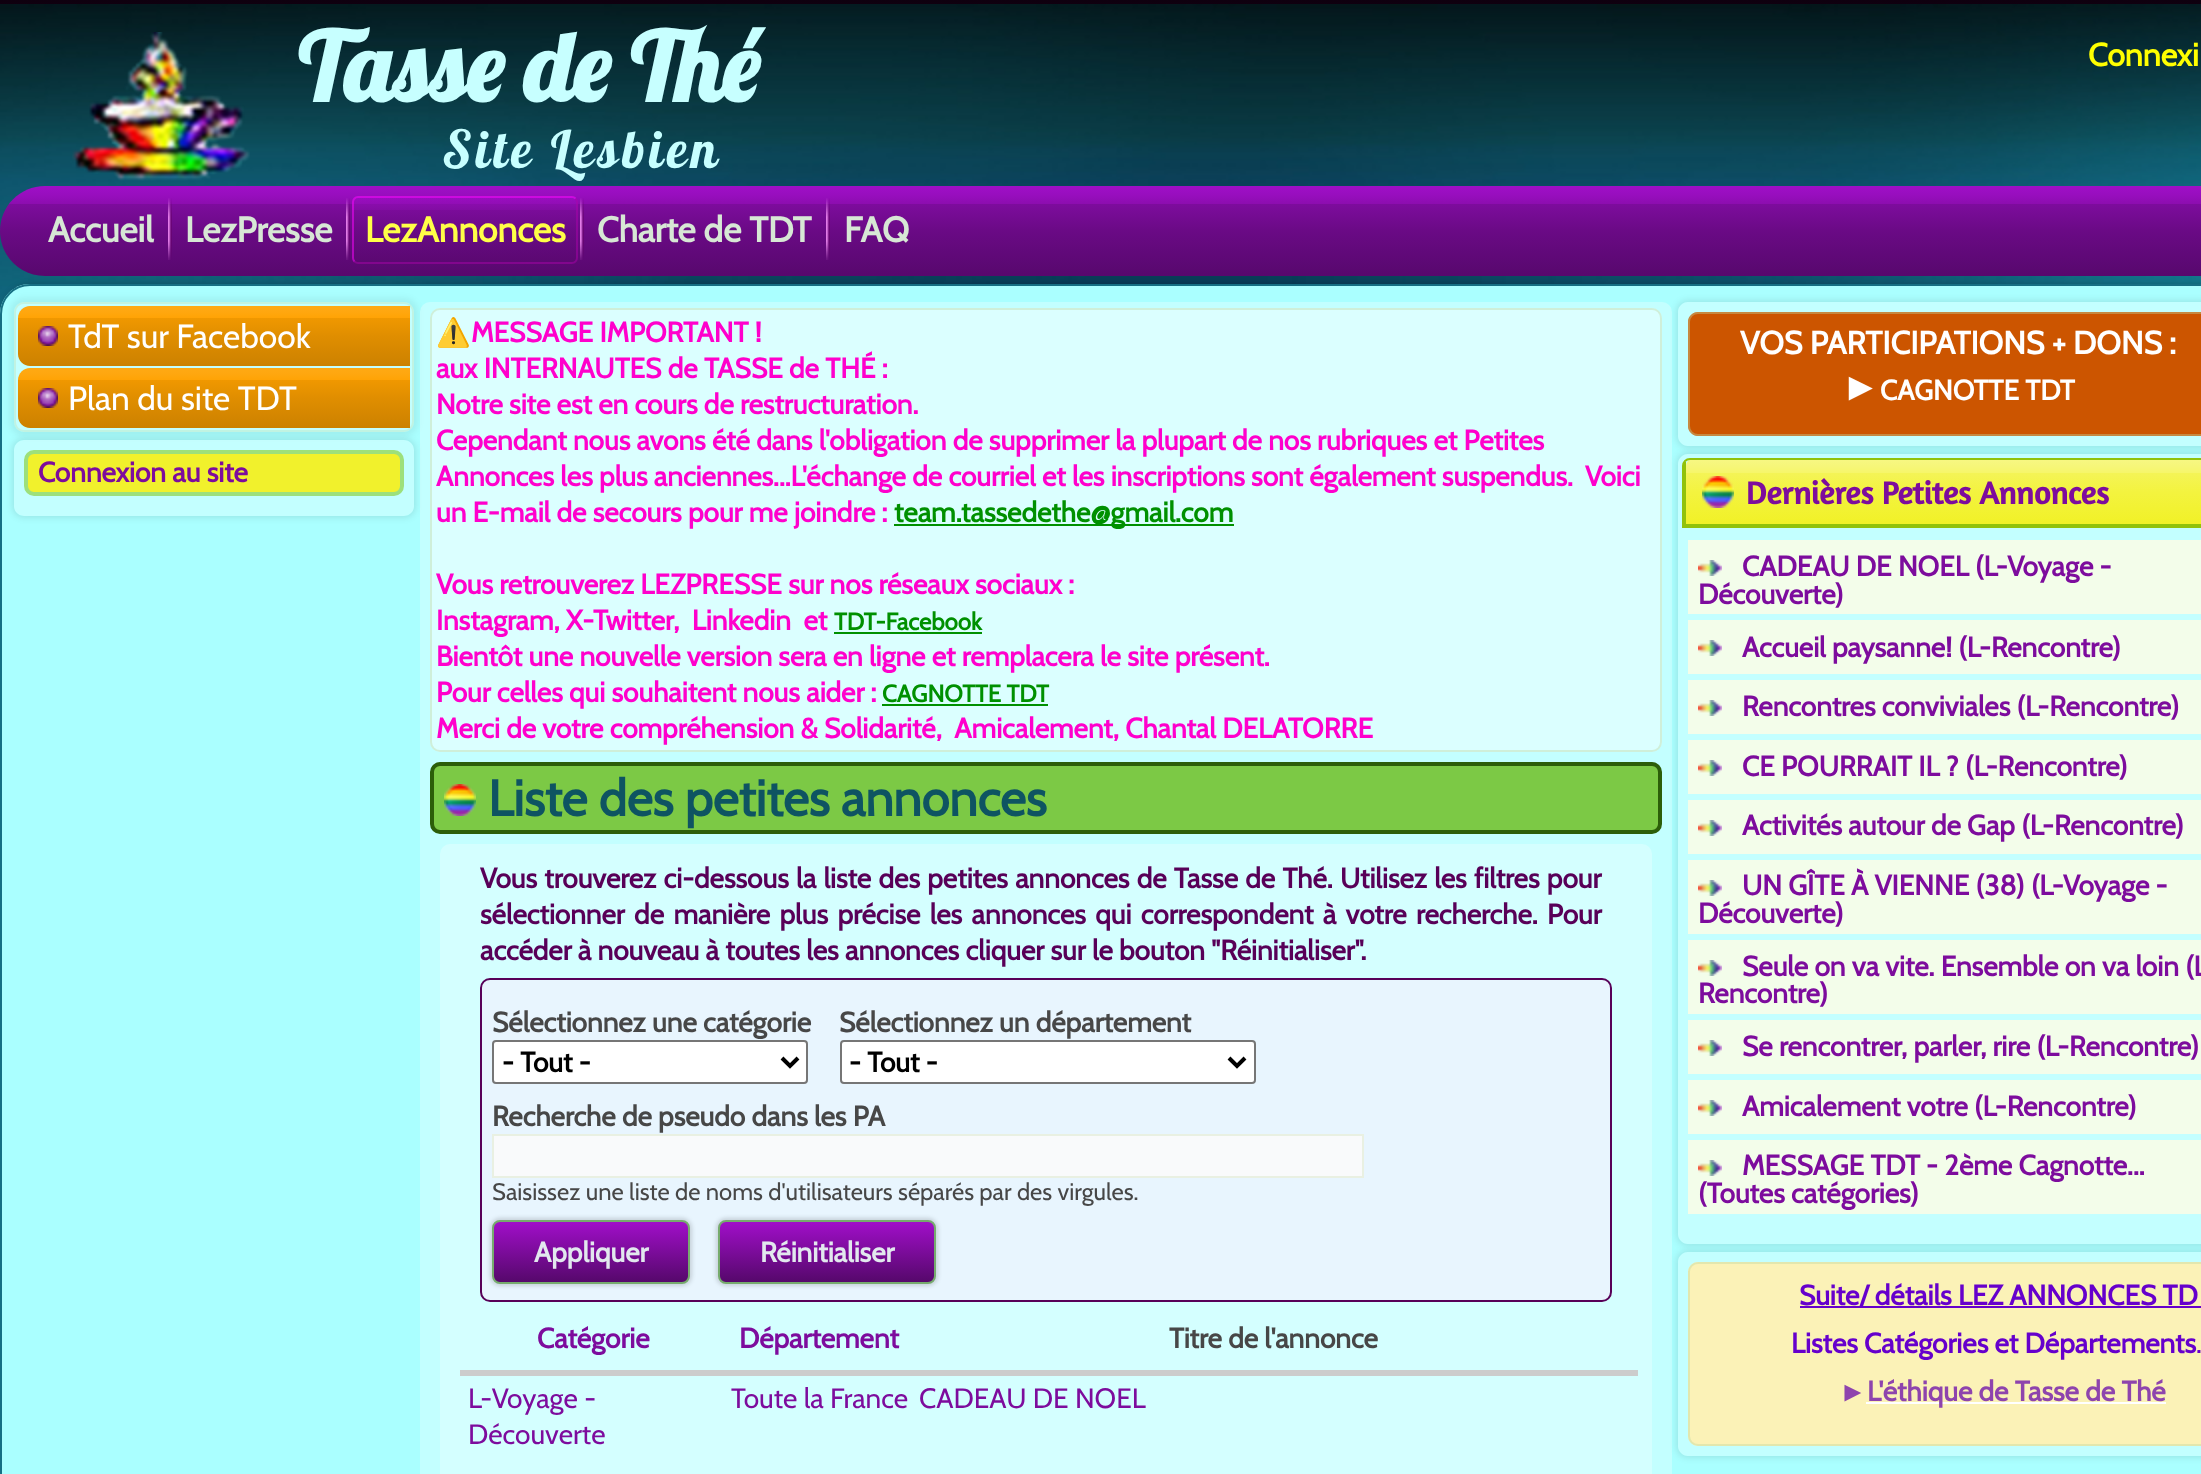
<svg xmlns="http://www.w3.org/2000/svg" width="2201" height="1474" viewBox="0 0 2201 1474">
  <defs>
    <linearGradient id="g1" gradientUnits="userSpaceOnUse" x1="1101" y1="0" x2="1101" y2="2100"><stop offset="0" stop-color="rgb(15,0,15)"/><stop offset="0.8" stop-color="rgb(255,0,255)"/><stop offset="1" stop-color="rgb(255,61,255)"/></linearGradient>
    <linearGradient id="g2" gradientUnits="userSpaceOnUse" x1="1140" y1="186" x2="1140" y2="276"><stop offset="0" stop-color="rgb(159,15,199)"/><stop offset="0.1" stop-color="rgb(152,14,190)"/><stop offset="0.2" stop-color="rgb(140,13,175)"/><stop offset="0.2" stop-color="rgb(125,12,157)"/><stop offset="0.5" stop-color="rgb(106,10,133)"/><stop offset="1" stop-color="rgb(87,8,109)"/></linearGradient>
    <linearGradient id="g3" gradientUnits="userSpaceOnUse" x1="465" y1="196" x2="465" y2="264"><stop offset="0" stop-color="rgb(159,15,199)" stop-opacity="0.5"/><stop offset="0.1" stop-color="rgb(152,14,190)" stop-opacity="0.5"/><stop offset="0.2" stop-color="rgb(140,13,175)" stop-opacity="0.5"/><stop offset="0.2" stop-color="rgb(125,12,157)" stop-opacity="0.5"/><stop offset="0.5" stop-color="rgb(106,10,133)" stop-opacity="0.5"/><stop offset="1" stop-color="rgb(87,8,109)" stop-opacity="0.5"/></linearGradient>
    <clipPath id="clip1"><path d="M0 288H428V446H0ZM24 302H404C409.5 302 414 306.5 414 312V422C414 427.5 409.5 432 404 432H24C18.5 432 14 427.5 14 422V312C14 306.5 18.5 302 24 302Z" clip-rule="evenodd"/></clipPath>
    <linearGradient id="g4" gradientUnits="userSpaceOnUse" x1="214" y1="306" x2="214" y2="366"><stop offset="0" stop-color="rgb(255,169,20)"/><stop offset="0.1" stop-color="rgb(255,167,15)"/><stop offset="0.2" stop-color="rgb(255,163,5)"/><stop offset="0.2" stop-color="rgb(255,162,0)"/><stop offset="0.2" stop-color="rgb(240,152,0)"/><stop offset="0.5" stop-color="rgb(224,142,0)"/><stop offset="1" stop-color="rgb(204,129,0)"/></linearGradient>
    <linearGradient id="g5" gradientUnits="userSpaceOnUse" x1="214" y1="368" x2="214" y2="428"><stop offset="0" stop-color="rgb(255,169,20)"/><stop offset="0.1" stop-color="rgb(255,167,15)"/><stop offset="0.2" stop-color="rgb(255,163,5)"/><stop offset="0.2" stop-color="rgb(255,162,0)"/><stop offset="0.2" stop-color="rgb(240,152,0)"/><stop offset="0.5" stop-color="rgb(224,142,0)"/><stop offset="1" stop-color="rgb(204,129,0)"/></linearGradient>
    <clipPath id="clip2"><path d="M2 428H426V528H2ZM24 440H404C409.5 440 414 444.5 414 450V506C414 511.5 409.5 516 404 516H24C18.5 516 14 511.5 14 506V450C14 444.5 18.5 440 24 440Z" clip-rule="evenodd"/></clipPath>
    <linearGradient id="g6" gradientUnits="userSpaceOnUse" x1="591" y1="1220" x2="591" y2="1284"><stop offset="0" stop-color="rgb(163,15,204)"/><stop offset="1" stop-color="rgb(83,8,104)"/></linearGradient>
    <linearGradient id="g7" gradientUnits="userSpaceOnUse" x1="827" y1="1220" x2="827" y2="1284"><stop offset="0" stop-color="rgb(163,15,204)"/><stop offset="1" stop-color="rgb(83,8,104)"/></linearGradient>
    <clipPath id="clip3"><path d="M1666 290H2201V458H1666ZM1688 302H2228C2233.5 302 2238 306.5 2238 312V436C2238 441.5 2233.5 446 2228 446H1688C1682.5 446 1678 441.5 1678 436V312C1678 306.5 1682.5 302 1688 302Z" clip-rule="evenodd"/></clipPath>
    <clipPath id="clip4"><path d="M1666 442H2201V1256H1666ZM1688 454H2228C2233.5 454 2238 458.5 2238 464V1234C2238 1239.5 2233.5 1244 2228 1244H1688C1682.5 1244 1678 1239.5 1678 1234V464C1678 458.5 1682.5 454 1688 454Z" clip-rule="evenodd"/></clipPath>
    <linearGradient id="g8" gradientUnits="userSpaceOnUse" x1="1959" y1="460" x2="1959" y2="524"><stop offset="0" stop-color="rgb(247,247,130)"/><stop offset="0.1" stop-color="rgb(246,246,121)"/><stop offset="0.2" stop-color="rgb(246,246,106)"/><stop offset="0.2" stop-color="rgb(244,244,87)"/><stop offset="0.5" stop-color="rgb(243,243,63)"/><stop offset="1" stop-color="rgb(241,241,39)"/></linearGradient>
    <clipPath id="clip5"><path d="M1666 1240H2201V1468H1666ZM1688 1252H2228C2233.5 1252 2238 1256.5 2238 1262V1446C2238 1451.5 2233.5 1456 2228 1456H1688C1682.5 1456 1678 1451.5 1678 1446V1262C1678 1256.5 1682.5 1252 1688 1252Z" clip-rule="evenodd"/></clipPath>
  </defs>
  <rect width="100%" height="100%" fill="rgb(255,255,255)"/>
  <rect x="0" y="0" width="2201" height="4" fill="url(#g1)"/>
  <image x="0" y="4" width="2201" height="310" href="pic1.png"/>
  <image x="72" y="32" width="178" height="149" href="pic2.png"/>
  <text x="298" y="102" font-family="Lobster" font-size="96" font-weight="bold" fill="rgb(199,255,255)">Tasse de Thé</text>
  <text x="2088" y="66" font-family="Cabin" font-size="32" font-weight="bold" fill="rgb(255,255,0)">Connexi</text>
  <text x="442" y="168" font-family="Lobster" font-size="52" letter-spacing="4" fill="rgb(199,255,255)">Site Lesbien</text>
  <rect x="0" y="284" width="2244" height="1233" rx="34" fill="rgba(0,0,0,0.2)" filter="blur(3px)"/>
  <path d="M45 186H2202V276H45C20 276 0 256 0 231C0 206 20 186 45 186Z" fill="url(#g2)"/>
  <text x="48" y="242" font-family="Cabin" font-size="35.25" font-weight="bold" fill="rgb(215,231,213)">Accueil</text>
  <image x="168" y="198" width="4" height="62" href="pic3.png"/>
  <text x="185" y="242" font-family="Cabin" font-size="35.25" font-weight="bold" fill="rgb(215,231,213)">LezPresse</text>
  <image x="346" y="198" width="4" height="62" href="pic3.png"/>
  <rect x="352" y="196" width="226" height="68" rx="6" fill="url(#g3)"/>
  <path d="M575.5 198.5C576.5 199.5 577 200.5 577 202V258C577 259.5 576.5 260.5 575.5 261.5C574.5 262.5 573.5 263 572 263H358C356.5 263 355.5 262.5 354.5 261.5" fill="none" stroke="rgba(170,3,170,0.5)" stroke-width="2"/>
  <path d="M354.5 261.5C353.5 260.5 353 259.5 353 258V202C353 200.5 353.5 199.5 354.5 198.5C355.5 197.5 356.5 197 358 197H572C573.5 197 574.5 197.5 575.5 198.5" fill="none" stroke="rgba(255,5,255,0.5)" stroke-width="2"/>
  <text x="365" y="242" font-family="Cabin" font-size="35.25" font-weight="bold" fill="rgb(255,255,71)">LezAnnonces</text>
  <image x="580" y="198" width="4" height="62" href="pic3.png"/>
  <text x="597" y="242" font-family="Cabin" font-size="35.25" font-weight="bold" fill="rgb(215,231,213)">Charte de TDT</text>
  <image x="826" y="198" width="4" height="62" href="pic3.png"/>
  <text x="844" y="242" font-family="Cabin" font-size="35.25" font-weight="bold" fill="rgb(215,231,213)">FAQ</text>
  <path d="M30 284H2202V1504H30C13.5 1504 0 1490.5 0 1474V314C0 297.5 13.5 284 30 284Z" fill="rgb(170,255,255)"/>
  <rect x="1" y="285" width="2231" height="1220" rx="29" fill="none" stroke="rgb(22,111,131)" stroke-width="2"/>
  <g clip-path="url(#clip1)">
    <rect x="10" y="298" width="408" height="138" rx="14" fill="rgba(0,0,0,0.06)" filter="blur(3px)"/>
  </g>
  <rect x="14" y="302" width="400" height="130" rx="10" fill="rgba(255,255,255,0.3)"/>
  <rect x="15" y="303" width="398" height="128" rx="9" fill="none" stroke="rgba(190,214,159,0.3)" stroke-width="2"/>
  <path d="M30 306H410V366H30C23.5 366 18 360.5 18 354V318C18 311.5 23.5 306 30 306Z" fill="url(#g4)"/>
  <image x="38" y="326" width="20" height="20" href="pic4.png"/>
  <text x="68" y="348" font-family="Cabin" font-size="33.5" fill="rgb(255,255,255)">TdT sur Facebook</text>
  <path d="M30 368H410V428H30C23.5 428 18 422.5 18 416V380C18 373.5 23.5 368 30 368Z" fill="url(#g5)"/>
  <image x="38" y="388" width="20" height="20" href="pic4.png"/>
  <text x="68" y="410" font-family="Cabin" font-size="33.5" fill="rgb(255,255,255)">Plan du site TDT</text>
  <g clip-path="url(#clip2)">
    <rect x="12" y="438" width="404" height="80" rx="12" fill="rgba(0,0,0,0.09)" filter="blur(3px)"/>
  </g>
  <rect x="14" y="440" width="400" height="76" rx="10" fill="rgba(255,255,255,0.3)"/>
  <rect x="26" y="452" width="376" height="42" rx="8" fill="rgb(241,241,44)" stroke="rgb(157,224,123)" stroke-width="4"/>
  <text x="38" y="482" font-family="Cabin" font-size="28" font-weight="bold" fill="rgb(125,12,157)">Connexion au site</text>
  <rect x="420" y="302" width="1252" height="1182" rx="10" fill="rgba(255,255,255,0.3)"/>
  <rect x="430" y="308" width="1232" height="444" rx="10" fill="rgb(219,255,255)"/>
  <rect x="431" y="309" width="1230" height="442" rx="9" fill="none" stroke="rgba(190,214,159,0.4)" stroke-width="2"/>
  <text x="436" y="342" font-family="Noto Color Emoji" font-size="28" font-weight="bold" fill="rgb(56,75,32)">⚠️</text>
  <g font-family="Cabin" font-size="28" font-weight="bold" fill="rgb(255,0,204)">
    <text x="471" y="342">MESSAGE IMPORTANT !</text>
    <text>
      <tspan x="436" y="378">aux INTERNAUTES de TASSE de THÉ :</tspan>
      <tspan x="436" y="414">Notre site est en cours de restructuration.</tspan>
      <tspan x="436" y="450">Cependant nous avons été dans l'obligation de supprimer la plupart de nos rubriques et Petites</tspan>
      <tspan x="436" y="486">Annonces les plus anciennes...L'échange de courriel et les inscriptions sont également suspendus.</tspan>
    </text>
    <text x="1585" y="486">Voici</text>
    <text x="436" y="522">un E-mail de secours pour me joindre :</text>
  </g>
  <rect x="894" y="524" width="340" height="2" fill="rgb(0,144,0)"/>
  <text x="894" y="522" font-family="Cabin" font-size="28" font-weight="bold" fill="rgb(0,144,0)">team.tassedethe@gmail.com</text>
  <g font-family="Cabin" font-size="28" font-weight="bold" fill="rgb(255,0,204)">
    <text xml:space="preserve"><tspan x="436" y="594">Vous retrouverez LEZPRESSE sur nos réseaux sociaux :</tspan><tspan x="436" y="630">Instagram, X-Twitter,  Linkedin  et</tspan></text>
  </g>
  <text x="834" y="630" font-family="Cabin" font-size="24" font-weight="bold" fill="rgb(0,144,0)">TDT-Facebook</text>
  <rect x="834" y="632" width="148" height="2" fill="rgb(0,144,0)"/>
  <g font-family="Cabin" font-size="28" font-weight="bold" fill="rgb(255,0,204)">
    <text>
      <tspan x="436" y="666">Bientôt une nouvelle version sera en ligne et remplacera le site présent.</tspan>
      <tspan x="436" y="702">Pour celles qui souhaitent nous aider :</tspan>
    </text>
  </g>
  <text x="882" y="702" font-family="Cabin" font-size="24" font-weight="bold" fill="rgb(0,144,0)">CAGNOTTE TDT</text>
  <rect x="882" y="704" width="166" height="2" fill="rgb(0,144,0)"/>
  <text x="436" y="738" font-family="Cabin" font-size="28" font-weight="bold" fill="rgb(255,0,204)" xml:space="preserve">Merci de votre compréhension &amp; Solidarité,  Amicalement, Chantal DELATORRE</text>
  <rect x="432" y="764" width="1228" height="68" rx="8" fill="rgb(124,201,69)" stroke="rgb(44,94,9)" stroke-width="4"/>
  <image x="444" y="784" width="32" height="32" href="pic5.png"/>
  <text x="488" y="816" font-family="Cabin" font-size="50.4" font-weight="bold" fill="rgb(14,84,98)">Liste des petites annonces</text>
  <rect x="440" y="844" width="1212" height="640" rx="10" fill="rgb(212,255,255)"/>
  <g font-family="Cabin" font-size="28" font-weight="bold" fill="rgb(88,0,88)">
    <text>
      <tspan x="480" y="888" word-spacing="1">Vous trouverez ci-dessous la liste des petites annonces de Tasse de Thé. Utilisez les filtres pour</tspan>
      <tspan x="480" y="924" word-spacing="3.1">sélectionner de manière plus précise les annonces qui correspondent à votre recherche. Pour</tspan>
      <tspan x="480" y="960">accéder à nouveau à toutes les annonces cliquer sur le bouton "Réinitialiser".</tspan>
    </text>
  </g>
  <rect x="481" y="979" width="1130" height="322" rx="9" fill="rgb(232,245,254)" stroke="rgb(88,0,88)" stroke-width="2"/>
  <text x="492" y="1032" font-family="Cabin" font-size="28" font-weight="bold" fill="rgb(71,71,71)">Sélectionnez une catégorie</text>
  <rect x="493" y="1041" width="314" height="42" rx="3" fill="rgb(255,255,255)" stroke="rgb(118,118,118)" stroke-width="2"/>
  <path d="M782 1058L790 1066L798 1058" fill="none" stroke="rgb(0,0,0)" stroke-width="4"/>
  <text x="502" y="1072" font-family="Cabin" font-size="28" font-weight="bold" fill="rgb(0,0,0)">- Tout -</text>
  <text x="839" y="1032" font-family="Cabin" font-size="28" font-weight="bold" fill="rgb(71,71,71)">Sélectionnez un département</text>
  <rect x="841" y="1041" width="414" height="42" rx="3" fill="rgb(255,255,255)" stroke="rgb(118,118,118)" stroke-width="2"/>
  <path d="M1229 1058L1237 1066L1245 1058" fill="none" stroke="rgb(0,0,0)" stroke-width="4"/>
  <text x="849" y="1072" font-family="Cabin" font-size="28" font-weight="bold" fill="rgb(0,0,0)">- Tout -</text>
  <text x="492" y="1126" font-family="Cabin" font-size="28" font-weight="bold" fill="rgb(71,71,71)">Recherche de pseudo dans les PA</text>
  <rect x="493" y="1135" width="870" height="42" fill="rgb(249,250,251)" stroke="rgb(233,240,226)" stroke-width="2"/>
  <text x="492" y="1200" font-family="Cabin" font-size="23.8" fill="rgb(71,71,71)">Saisissez une liste de noms d'utilisateurs séparés par des virgules.</text>
  <rect x="490" y="1218" width="202" height="68" rx="10" fill="rgba(0,0,0,0.15)" filter="blur(2px)"/>
  <rect x="493" y="1221" width="196" height="62" rx="7" fill="url(#g6)" stroke="rgb(118,171,109)" stroke-width="2"/>
  <text x="534" y="1262" font-family="Cabin" font-size="28" font-weight="bold" fill="rgb(226,232,238)">Appliquer</text>
  <rect x="716" y="1218" width="222" height="68" rx="10" fill="rgba(0,0,0,0.15)" filter="blur(2px)"/>
  <rect x="719" y="1221" width="216" height="62" rx="7" fill="url(#g7)" stroke="rgb(118,171,109)" stroke-width="2"/>
  <text x="760" y="1262" font-family="Cabin" font-size="28" font-weight="bold" fill="rgb(226,232,238)">Réinitialiser</text>
  <g font-family="Cabin" font-size="28" font-weight="bold" fill="rgb(125,12,157)">
    <text x="537" y="1348">Catégorie</text>
    <text x="739" y="1348">Département</text>
  </g>
  <rect x="460" y="1370" width="1178" height="6" fill="rgb(204,204,204)"/>
  <text x="1169" y="1348" font-family="Cabin" font-size="28" font-weight="bold" fill="rgb(71,71,71)">Titre de l'annonce</text>
  <g font-family="Cabin" font-size="28" fill="rgb(125,12,157)">
    <text>
      <tspan x="468" y="1408">L-Voyage -</tspan>
      <tspan x="468" y="1444">Découverte</tspan>
    </text>
    <text x="731" y="1408">Toute la France</text>
    <text x="919" y="1408">CADEAU DE NOEL</text>
  </g>
  <g clip-path="url(#clip3)">
    <rect x="1676" y="300" width="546" height="148" rx="12" fill="rgba(0,0,0,0.09)" filter="blur(3px)"/>
  </g>
  <path d="M1688 302H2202V446H1688C1682.5 446 1678 441.5 1678 436V312C1678 306.5 1682.5 302 1688 302Z" fill="rgba(255,255,255,0.3)"/>
  <path d="M1698 312H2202V436H1698C1692.5 436 1688 431.5 1688 426V322C1688 316.5 1692.5 312 1698 312Z" fill="rgb(204,85,0)"/>
  <rect x="1689" y="313" width="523" height="122" rx="9" fill="none" stroke="rgba(190,214,159,0.4)" stroke-width="2"/>
  <text x="1740" y="354" font-family="Cabin" font-size="32" font-weight="bold" fill="rgb(255,255,255)">VOS PARTICIPATIONS + DONS :</text>
  <text x="1841" y="400" font-family="Liberation Sans" font-size="40" font-weight="bold" fill="rgb(255,255,255)">►</text>
  <text x="1880" y="400" font-family="Cabin" font-size="28" font-weight="bold" fill="rgb(255,255,255)">CAGNOTTE TDT</text>
  <g clip-path="url(#clip4)">
    <rect x="1676" y="452" width="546" height="794" rx="12" fill="rgba(0,0,0,0.09)" filter="blur(3px)"/>
  </g>
  <path d="M1688 454H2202V1244H1688C1682.5 1244 1678 1239.5 1678 1234V464C1678 458.5 1682.5 454 1688 454Z" fill="rgba(255,255,255,0.3)"/>
  <path d="M1690 460H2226C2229 460 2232 463 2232 466V524H1686V466C1686 463 1688 460 1690 460Z" fill="url(#g8)"/>
  <path d="M1690 459H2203C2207 459 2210 462 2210 466V527H1683V466C1683 462 1686 459 1690 459Z" fill="none" stroke="rgb(145,194,10)" stroke-width="2"/>
  <rect x="1682" y="524" width="519" height="2" fill="rgb(145,194,10)"/>
  <rect x="1684" y="462" width="2" height="66" fill="rgb(145,194,10)"/>
  <image x="1702" y="476" width="32" height="32" href="pic6.png"/>
  <text x="1746" y="504" font-family="Amaranth" font-size="32" font-weight="bold" fill="rgb(125,12,157)">Dernières Petites Annonces</text>
  <rect x="1688" y="540" width="513" height="74" fill="rgb(243,253,234)"/>
  <image x="1698" y="560" width="24" height="16" href="pic7.png"/>
  <g font-family="Cabin" font-size="28" font-weight="bold" fill="rgb(125,12,157)">
    <text x="1742" y="576">CADEAU DE NOEL (L-Voyage -</text>
    <text x="1698" y="604">Découverte)</text>
  </g>
  <rect x="1688" y="620" width="513" height="54" fill="rgb(243,253,234)"/>
  <image x="1698" y="640" width="24" height="16" href="pic7.png"/>
  <text x="1742" y="657" font-family="Cabin" font-size="28" font-weight="bold" fill="rgb(125,12,157)">Accueil paysanne! (L-Rencontre)</text>
  <rect x="1688" y="680" width="513" height="54" fill="rgb(243,253,234)"/>
  <image x="1698" y="700" width="24" height="16" href="pic7.png"/>
  <text x="1742" y="716" font-family="Cabin" font-size="28" font-weight="bold" fill="rgb(125,12,157)">Rencontres conviviales (L-Rencontre)</text>
  <rect x="1688" y="740" width="513" height="54" fill="rgb(243,253,234)"/>
  <image x="1698" y="760" width="24" height="16" href="pic7.png"/>
  <text x="1742" y="776" font-family="Cabin" font-size="28" font-weight="bold" fill="rgb(125,12,157)">CE POURRAIT IL ? (L-Rencontre)</text>
  <rect x="1688" y="800" width="513" height="54" fill="rgb(243,253,234)"/>
  <image x="1698" y="820" width="24" height="16" href="pic7.png"/>
  <text x="1742" y="835" font-family="Cabin" font-size="28" font-weight="bold" fill="rgb(125,12,157)">Activités autour de Gap (L-Rencontre)</text>
  <rect x="1688" y="860" width="513" height="74" fill="rgb(243,253,234)"/>
  <image x="1698" y="880" width="24" height="16" href="pic7.png"/>
  <g font-family="Cabin" font-size="28" font-weight="bold" fill="rgb(125,12,157)">
    <text x="1742" y="895">UN GÎTE À VIENNE (38) (L-Voyage -</text>
    <text x="1698" y="923">Découverte)</text>
  </g>
  <rect x="1688" y="940" width="513" height="74" fill="rgb(243,253,234)"/>
  <image x="1698" y="960" width="24" height="16" href="pic7.png"/>
  <g font-family="Cabin" font-size="28" font-weight="bold" fill="rgb(125,12,157)">
    <text x="1742" y="976">Seule on va vite. Ensemble on va loin (L</text>
    <text x="1698" y="1003">Rencontre)</text>
  </g>
  <rect x="1688" y="1020" width="513" height="54" fill="rgb(243,253,234)"/>
  <image x="1698" y="1040" width="24" height="16" href="pic7.png"/>
  <text x="1742" y="1056" font-family="Cabin" font-size="28" font-weight="bold" fill="rgb(125,12,157)">Se rencontrer, parler, rire (L-Rencontre)</text>
  <rect x="1688" y="1080" width="513" height="54" fill="rgb(243,253,234)"/>
  <image x="1698" y="1100" width="24" height="16" href="pic7.png"/>
  <text x="1742" y="1116" font-family="Cabin" font-size="28" font-weight="bold" fill="rgb(125,12,157)">Amicalement votre (L-Rencontre)</text>
  <rect x="1688" y="1140" width="513" height="74" fill="rgb(243,253,234)"/>
  <image x="1698" y="1160" width="24" height="16" href="pic7.png"/>
  <g font-family="Cabin" font-size="28" font-weight="bold" fill="rgb(125,12,157)">
    <text x="1742" y="1175">MESSAGE TDT - 2ème Cagnotte...</text>
    <text x="1698" y="1203">(Toutes catégories)</text>
  </g>
  <g clip-path="url(#clip5)">
    <rect x="1676" y="1250" width="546" height="208" rx="12" fill="rgba(0,0,0,0.09)" filter="blur(3px)"/>
  </g>
  <path d="M1688 1252H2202V1456H1688C1682.5 1456 1678 1451.5 1678 1446V1262C1678 1256.5 1682.5 1252 1688 1252Z" fill="rgba(255,255,255,0.3)"/>
  <path d="M1698 1262H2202V1446H1698C1692.5 1446 1688 1441.5 1688 1436V1272C1688 1266.5 1692.5 1262 1698 1262Z" fill="rgb(251,242,183)"/>
  <rect x="1689" y="1263" width="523" height="182" rx="9" fill="none" stroke="rgba(190,214,159,0.4)" stroke-width="2"/>
  <rect x="1800" y="1306" width="401" height="2" fill="rgb(102,0,204)"/>
  <g font-family="Cabin" font-size="28" font-weight="bold" fill="rgb(102,0,204)">
    <text x="1799" y="1305">Suite/ détails LEZ ANNONCES TD</text>
    <text x="1791" y="1353">Listes Catégories et Départements</text>
  </g>
  <text x="2196" y="1353" font-family="Cabin" font-size="28" fill="rgb(102,0,204)">.</text>
  <text x="1839" y="1401" font-family="Liberation Sans" font-size="28" fill="rgb(142,68,173)">►</text>
  <rect x="1866" y="1402" width="300" height="2" fill="rgb(255,255,255)"/>
  <text x="1867" y="1401" font-family="Cabin" font-size="28" font-weight="bold" fill="rgb(142,68,173)">L'éthique de Tasse de Thé</text>
</svg>
